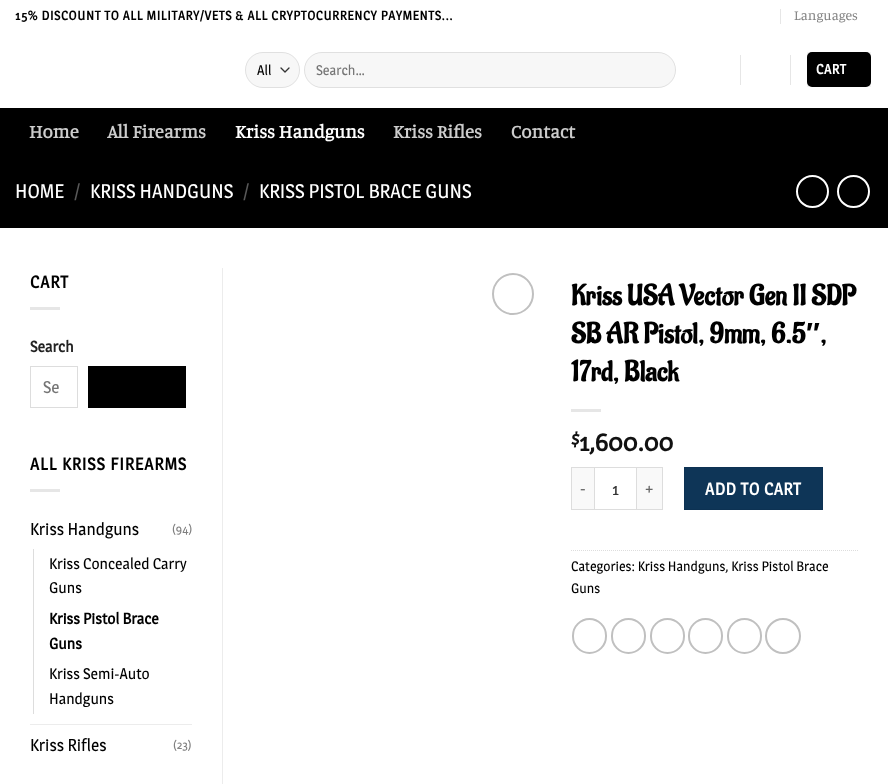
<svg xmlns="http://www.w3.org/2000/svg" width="888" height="784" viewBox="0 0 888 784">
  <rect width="100%" height="100%" fill="rgb(255,255,255)"/>
  <text x="15" y="20" font-family="Magra" font-size="12.85" font-weight="bold" letter-spacing="0.65" fill="rgb(0,0,0)">15% DISCOUNT TO ALL MILITARY/VETS &amp; ALL CRYPTOCURRENCY PAYMENTS...</text>
  <rect x="780" y="9" width="1" height="15" fill="rgb(230,230,230)"/>
  <text x="794" y="20" font-family="Manuale" font-size="13.75" fill="rgb(128,128,128)">Languages</text>
  <rect x="245" y="52" width="55" height="36" rx="18" fill="rgb(247,247,247)"/>
  <path d="M281 68L285 72L289 68" fill="none" stroke="rgb(51,51,51)" stroke-width="1.3" stroke-linecap="round" stroke-linejoin="round"/>
  <rect x="245.5" y="52.5" width="54" height="35" rx="17.5" fill="none" stroke="rgba(0,0,0,0.09)"/>
  <text x="257" y="75" font-family="Magra" font-size="14" fill="rgb(0,0,0)">All</text>
  <rect x="304" y="52" width="372" height="36" rx="18" fill="rgb(247,247,247)"/>
  <rect x="304.5" y="52.5" width="371" height="35" rx="17.5" fill="none" stroke="rgba(0,0,0,0.09)"/>
  <text x="316" y="75" font-family="Magra" font-size="14" fill="rgb(117,117,117)">Search…</text>
  <rect x="740" y="55" width="1" height="30" fill="rgb(230,230,230)"/>
  <rect x="790" y="55" width="1" height="30" fill="rgb(230,230,230)"/>
  <rect x="807" y="52" width="64" height="35" rx="5" fill="rgb(0,0,0)"/>
  <rect x="807.5" y="52.5" width="63" height="34" fill="none" stroke="rgba(0,0,0,0.05)"/>
  <text x="816" y="74" font-family="Magra" font-size="13.75" font-weight="bold" letter-spacing="0.5" fill="rgb(255,255,255)">CART</text>
  <rect x="0" y="108" width="888" height="120" fill="rgb(0,0,0)"/>
  <g font-family="Manuale" font-size="18.75" font-weight="bold" fill="rgb(204,204,204)">
    <text x="29" y="138">Home</text>
    <text x="107" y="138">All Firearms</text>
  </g>
  <text x="235" y="138" font-family="Manuale" font-size="18.75" font-weight="bold" fill="rgb(255,255,255)">Kriss Handguns</text>
  <g font-family="Manuale" font-size="18.75" font-weight="bold" fill="rgb(204,204,204)">
    <text x="393" y="138">Kriss Rifles</text>
    <text x="511" y="138">Contact</text>
  </g>
  <text x="15" y="198" font-family="Magra" font-size="19.75" fill="rgb(255,255,255)">HOME</text>
  <text x="74" y="198" font-family="Magra" font-size="19.75" fill="rgb(89,89,89)">/</text>
  <text x="90" y="198" font-family="Magra" font-size="19.75" fill="rgb(255,255,255)">KRISS HANDGUNS</text>
  <text x="243" y="198" font-family="Magra" font-size="19.75" fill="rgb(89,89,89)">/</text>
  <text x="259" y="198" font-family="Magra" font-size="19.75" fill="rgb(255,255,255)">KRISS PISTOL BRACE GUNS</text>
  <circle cx="812.5" cy="191.5" r="15.5" fill="none" stroke="rgb(255,255,255)" stroke-width="2"/>
  <circle cx="853.5" cy="191.5" r="15.5" fill="none" stroke="rgb(255,255,255)" stroke-width="2"/>
  <text x="30" y="288" font-family="Magra" font-size="17.1" font-weight="bold" letter-spacing="0.9" fill="rgb(0,0,0)">CART</text>
  <rect x="30" y="307" width="30" height="3" fill="rgb(230,230,230)"/>
  <text x="30" y="352" font-family="Magra" font-size="15.5" font-weight="bold" fill="rgb(34,34,34)">Search</text>
  <rect x="30.5" y="366.5" width="47" height="41" fill="none" stroke="rgb(221,221,221)"/>
  <text x="43" y="393" font-family="Magra" font-size="17" fill="rgb(117,117,117)">Se</text>
  <rect x="88" y="366" width="98" height="42" fill="rgb(0,0,0)"/>
  <text x="30" y="470" font-family="Magra" font-size="17.1" font-weight="bold" letter-spacing="0.9" fill="rgb(0,0,0)">ALL KRISS FIREARMS</text>
  <rect x="30" y="489" width="30" height="3" fill="rgb(230,230,230)"/>
  <text x="30" y="535" font-family="Magra" font-size="17.1" fill="rgb(0,0,0)">Kriss Handguns</text>
  <text x="172" y="533" font-family="Magra" font-size="12" fill="rgb(128,128,128)">(94)</text>
  <rect x="33" y="549" width="1" height="165" fill="rgb(221,221,221)"/>
  <g font-family="Magra" font-size="15.5" fill="rgb(0,0,0)">
    <text>
      <tspan x="49" y="569">Kriss Concealed Carry</tspan>
      <tspan x="49" y="593">Guns</tspan>
    </text>
  </g>
  <g font-family="Magra" font-size="15.5" font-weight="bold" fill="rgb(0,0,0)">
    <text>
      <tspan x="49" y="624">Kriss Pistol Brace</tspan>
      <tspan x="49" y="649">Guns</tspan>
    </text>
  </g>
  <g font-family="Magra" font-size="15.5" fill="rgb(0,0,0)">
    <text>
      <tspan x="49" y="679">Kriss Semi-Auto</tspan>
      <tspan x="49" y="704">Handguns</tspan>
    </text>
  </g>
  <rect x="30" y="724" width="162" height="1" fill="rgb(236,236,236)"/>
  <text x="30" y="751" font-family="Magra" font-size="17.1" fill="rgb(0,0,0)">Kriss Rifles</text>
  <text x="173" y="749" font-family="Magra" font-size="12" fill="rgb(128,128,128)">(23)</text>
  <rect x="222" y="268" width="1" height="516" fill="rgb(236,236,236)"/>
  <circle cx="513" cy="294" r="20" fill="none" stroke="rgb(192,192,192)" stroke-width="2"/>
  <g font-family="Aladin" font-size="29" font-weight="bold" fill="rgb(0,0,0)">
    <text>
      <tspan x="571" y="305">Kriss USA Vector Gen II SDP</tspan>
      <tspan x="571" y="343">SB AR Pistol, 9mm, 6.5</tspan>
    </text>
  </g>
  <text x="806" y="343" font-family="Liberation Sans" font-size="29" font-weight="bold" fill="rgb(0,0,0)">″</text>
  <g font-family="Aladin" font-size="29" font-weight="bold" fill="rgb(0,0,0)">
    <text x="820" y="343">,</text>
    <text x="571" y="381">17rd, Black</text>
  </g>
  <rect x="571" y="409" width="30" height="3" fill="rgb(230,230,230)"/>
  <text x="571" y="446" font-family="Magra" font-size="19" font-weight="bold" fill="rgb(17,17,17)">$</text>
  <text x="579" y="451" font-family="Magra" font-size="25.5" font-weight="bold" fill="rgb(17,17,17)">1,600.00</text>
  <rect x="572" y="468" width="22" height="41" fill="rgb(249,249,249)"/>
  <rect x="571" y="467" width="23" height="1" fill="rgb(221,221,221)"/>
  <rect x="571" y="509" width="23" height="1" fill="rgb(221,221,221)"/>
  <rect x="571" y="467" width="1" height="43" fill="rgb(221,221,221)"/>
  <text x="580" y="494" font-family="Magra" font-size="17" fill="rgb(102,102,102)">-</text>
  <rect x="594.5" y="467.5" width="42" height="42" fill="none" stroke="rgb(221,221,221)"/>
  <text x="612" y="495" font-family="Magra" font-size="17.1" fill="rgb(51,51,51)">1</text>
  <rect x="637" y="468" width="25" height="41" fill="rgb(249,249,249)"/>
  <rect x="637" y="467" width="26" height="1" fill="rgb(221,221,221)"/>
  <rect x="662" y="467" width="1" height="43" fill="rgb(221,221,221)"/>
  <rect x="637" y="509" width="26" height="1" fill="rgb(221,221,221)"/>
  <text x="645" y="494" font-family="Magra" font-size="17" fill="rgb(102,102,102)">+</text>
  <rect x="684.5" y="467.5" width="138" height="42" fill="rgb(14,53,87)" stroke="rgb(13,50,83)"/>
  <text x="705" y="495" font-family="Magra" font-size="17.1" font-weight="bold" letter-spacing="0.5" fill="rgb(255,255,255)">ADD TO CART</text>
  <path d="M571 550.5H858" fill="none" stroke="rgb(221,221,221)" stroke-dasharray="1 1"/>
  <g font-family="Magra" font-size="13.75" fill="rgb(0,0,0)">
    <text>
      <tspan x="571" y="571">Categories: Kriss Handguns, Kriss Pistol Brace</tspan>
      <tspan x="571" y="593">Guns</tspan>
    </text>
  </g>
  <rect x="573" y="619" width="33" height="34" rx="16.5" fill="none" stroke="rgb(192,192,192)" stroke-width="2"/>
  <rect x="612" y="619" width="33" height="34" rx="16.5" fill="none" stroke="rgb(192,192,192)" stroke-width="2"/>
  <rect x="651" y="619" width="33" height="34" rx="16.5" fill="none" stroke="rgb(192,192,192)" stroke-width="2"/>
  <rect x="689" y="619" width="33" height="34" rx="16.5" fill="none" stroke="rgb(192,192,192)" stroke-width="2"/>
  <rect x="728" y="619" width="33" height="34" rx="16.5" fill="none" stroke="rgb(192,192,192)" stroke-width="2"/>
  <circle cx="783" cy="636" r="17" fill="none" stroke="rgb(192,192,192)" stroke-width="2"/>
</svg>
